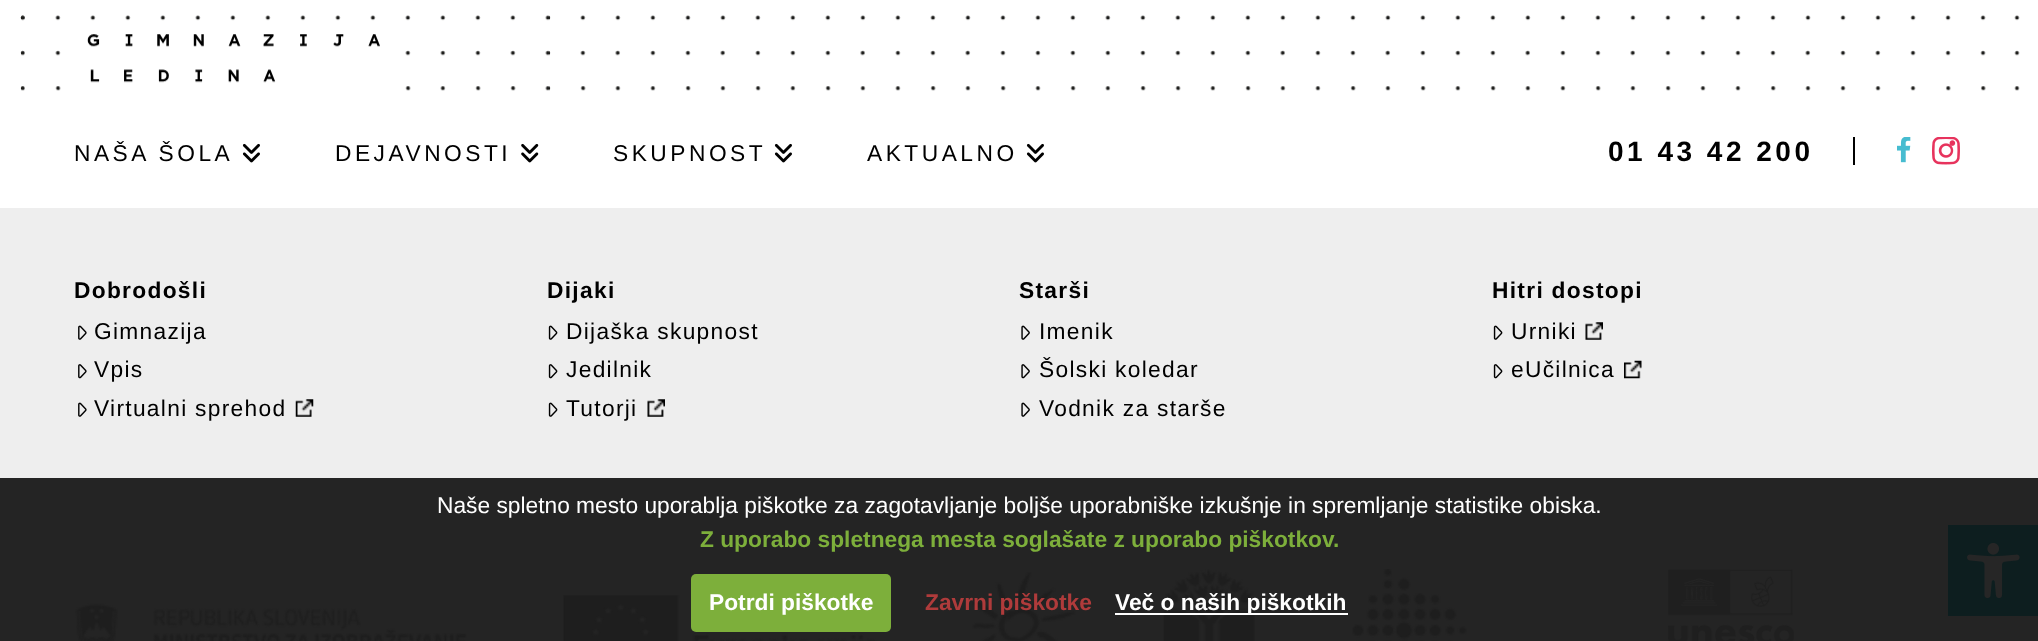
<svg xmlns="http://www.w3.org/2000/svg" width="2038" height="641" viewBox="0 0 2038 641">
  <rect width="100%" height="100%" fill="rgb(255,255,255)"/>
  <image x="20" y="15" width="5" height="76" href="pic1.png"/>
  <image x="55" y="15" width="1931" height="76" href="pic2.png"/>
  <image x="87" y="34" width="293" height="49" href="pic3.png"/>
  <image x="2014" y="15" width="6" height="76" href="pic4.png"/>
  <text x="74" y="161" font-family="Liberation Sans" font-size="22.75" letter-spacing="3.5" fill="rgb(0,0,0)">NAŠA ŠOLA</text>
  <image x="242" y="143" width="18" height="20" href="pic5.png"/>
  <text x="335" y="161" font-family="Liberation Sans" font-size="22.75" letter-spacing="3.5" fill="rgb(0,0,0)">DEJAVNOSTI</text>
  <image x="521" y="143" width="18" height="20" href="pic6.png"/>
  <text x="613" y="161" font-family="Liberation Sans" font-size="22.75" letter-spacing="3.5" fill="rgb(0,0,0)">SKUPNOST</text>
  <image x="774" y="143" width="18" height="20" href="pic5.png"/>
  <text x="867" y="161" font-family="Liberation Sans" font-size="22.75" letter-spacing="3.5" fill="rgb(0,0,0)">AKTUALNO</text>
  <image x="1026" y="143" width="18" height="20" href="pic5.png"/>
  <text x="1608" y="161" font-family="Liberation Sans" font-size="28" font-weight="bold" letter-spacing="3.5" fill="rgb(0,0,0)">01 43 42 200</text>
  <rect x="1853" y="137" width="2" height="28" fill="rgb(0,0,0)"/>
  <image x="1897" y="137" width="14" height="26" href="pic7.png"/>
  <image x="1932" y="137" width="28" height="28" href="pic8.png"/>
  <rect x="0" y="208" width="2038" height="270" fill="rgb(238,238,238)"/>
  <rect x="0" y="478" width="2038" height="163" fill="rgb(36,36,36)"/>
  <text x="74" y="298" font-family="Liberation Sans" font-size="22.75" font-weight="bold" letter-spacing="1.3" fill="rgb(0,0,0)">Dobrodošli</text>
  <image x="78" y="325" width="9" height="15" href="pic9.png"/>
  <text x="94" y="339" font-family="Liberation Sans" font-size="22.75" letter-spacing="1.3" fill="rgb(0,0,0)">Gimnazija</text>
  <image x="78" y="364" width="9" height="15" href="pic10.png"/>
  <text x="94" y="377" font-family="Liberation Sans" font-size="22.75" letter-spacing="1.3" fill="rgb(0,0,0)">Vpis</text>
  <image x="78" y="402" width="9" height="15" href="pic9.png"/>
  <text x="94" y="416" font-family="Liberation Sans" font-size="22.75" letter-spacing="1.3" fill="rgb(0,0,0)">Virtualni sprehod</text>
  <image x="295" y="399" width="19" height="18" href="pic11.png"/>
  <text x="547" y="298" font-family="Liberation Sans" font-size="22.75" font-weight="bold" letter-spacing="1.3" fill="rgb(0,0,0)">Dijaki</text>
  <image x="548" y="325" width="10" height="15" href="pic12.png"/>
  <text x="566" y="339" font-family="Liberation Sans" font-size="22.75" letter-spacing="1.3" fill="rgb(0,0,0)">Dijaška skupnost</text>
  <image x="548" y="364" width="10" height="15" href="pic13.png"/>
  <text x="566" y="377" font-family="Liberation Sans" font-size="22.75" letter-spacing="1.3" fill="rgb(0,0,0)">Jedilnik</text>
  <image x="548" y="402" width="10" height="15" href="pic12.png"/>
  <text x="566" y="416" font-family="Liberation Sans" font-size="22.75" letter-spacing="1.3" fill="rgb(0,0,0)">Tutorji</text>
  <image x="647" y="399" width="18" height="18" href="pic14.png"/>
  <text x="1019" y="298" font-family="Liberation Sans" font-size="22.75" font-weight="bold" letter-spacing="1.3" fill="rgb(0,0,0)">Starši</text>
  <image x="1021" y="325" width="9" height="15" href="pic15.png"/>
  <text x="1039" y="339" font-family="Liberation Sans" font-size="22.75" letter-spacing="1.3" fill="rgb(0,0,0)">Imenik</text>
  <image x="1021" y="364" width="9" height="15" href="pic16.png"/>
  <text x="1039" y="377" font-family="Liberation Sans" font-size="22.75" letter-spacing="1.3" fill="rgb(0,0,0)">Šolski koledar</text>
  <image x="1021" y="402" width="9" height="15" href="pic15.png"/>
  <text x="1039" y="416" font-family="Liberation Sans" font-size="22.75" letter-spacing="1.3" fill="rgb(0,0,0)">Vodnik za starše</text>
  <text x="1492" y="298" font-family="Liberation Sans" font-size="22.75" font-weight="bold" letter-spacing="1.3" fill="rgb(0,0,0)">Hitri dostopi</text>
  <image x="1493" y="325" width="10" height="15" href="pic12.png"/>
  <text x="1511" y="339" font-family="Liberation Sans" font-size="22.75" letter-spacing="1.3" fill="rgb(0,0,0)">Urniki</text>
  <image x="1585" y="322" width="18" height="18" href="pic17.png"/>
  <image x="1493" y="364" width="10" height="15" href="pic13.png"/>
  <text x="1511" y="377" font-family="Liberation Sans" font-size="22.75" letter-spacing="1.3" fill="rgb(0,0,0)">eUčilnica</text>
  <image x="1624" y="360" width="18" height="19" href="pic18.png"/>
  <image x="75" y="603" width="392" height="38" href="pic19.png"/>
  <image x="563" y="595" width="314" height="46" href="pic20.png"/>
  <image x="972" y="572" width="104" height="69" href="pic21.png"/>
  <image x="1163" y="569" width="92" height="72" href="pic22.png"/>
  <image x="1352" y="569" width="115" height="72" href="pic23.png"/>
  <image x="1668" y="569" width="126" height="72" href="pic24.png"/>
  <text x="437" y="513" font-family="Liberation Sans" font-size="22.75" fill="rgb(255,255,255)">Naše spletno mesto uporablja piškotke za zagotavljanje boljše uporabniške izkušnje in spremljanje statistike obiska.</text>
  <text x="700" y="547" font-family="Liberation Sans" font-size="22.75" font-weight="bold" fill="rgb(125,175,59)">Z uporabo spletnega mesta soglašate z uporabo piškotkov.</text>
  <rect x="691" y="574" width="200" height="58" rx="5" fill="rgb(125,175,59)"/>
  <text x="709" y="610" font-family="Liberation Sans" font-size="22.75" font-weight="bold" fill="rgb(255,255,255)">Potrdi piškotke</text>
  <text x="925" y="610" font-family="Liberation Sans" font-size="22.75" font-weight="bold" fill="rgb(175,59,59)">Zavrni piškotke</text>
  <rect x="1115" y="613" width="233" height="2" fill="rgb(255,255,255)"/>
  <text x="1115" y="610" font-family="Liberation Sans" font-size="22.75" font-weight="bold" fill="rgb(255,255,255)">Več o naših piškotkih</text>
  <rect x="1948" y="525" width="90" height="91" fill="rgb(13,30,31)"/>
  <image x="1967" y="543" width="53" height="56" href="pic25.png"/>
</svg>
